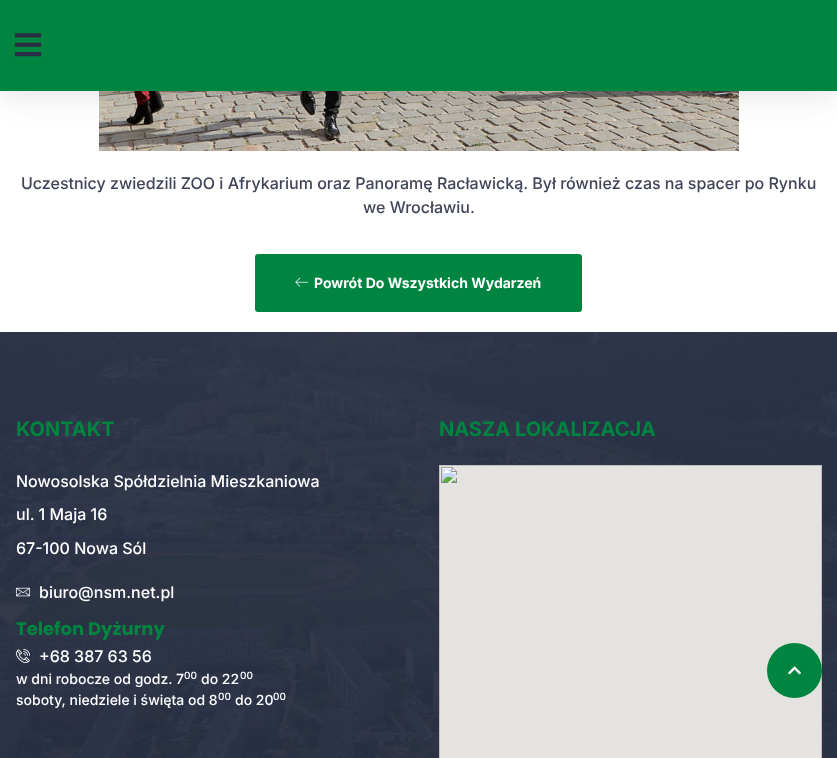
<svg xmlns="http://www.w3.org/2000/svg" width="837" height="758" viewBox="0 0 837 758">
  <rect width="100%" height="100%" fill="rgb(255,255,255)"/>
  <image x="99" y="91" width="640" height="60" href="pic2.png"/>
  <rect x="0" y="5" width="837" height="91" fill="rgba(0,0,0,0.1)" filter="blur(15px)"/>
  <rect x="0" y="0" width="837" height="91" fill="rgb(0,133,64)"/>
  <image x="15" y="33" width="27" height="24" href="pic1.png"/>
  <g font-family="Inter" font-size="16" font-weight="500" fill="rgb(64,68,88)">
    <text x="21" y="189">Uczestnicy zwiedzili ZOO i Afrykarium oraz Panoramę Racławicką. Był również czas na spacer po Rynku</text>
    <text x="363" y="213">we Wrocławiu.</text>
  </g>
  <rect x="255" y="254" width="327" height="58" rx="3" fill="rgb(0,133,64)"/>
  <image x="295" y="277" width="14" height="10" href="pic3.png"/>
  <text x="314" y="288" font-family="Inter" font-size="14" font-weight="bold" fill="rgb(255,255,255)">Powrót Do Wszystkich Wydarzeń</text>
  <image x="0" y="332" width="837" height="426" href="pic4.png"/>
  <text x="16" y="436" font-family="Inter" font-size="20" font-weight="bold" fill="rgb(0,133,64)">KONTAKT</text>
  <g font-family="Inter" font-size="16" font-weight="500" fill="rgb(255,255,255)">
    <text x="16" y="487">Nowosolska Spółdzielnia Mieszkaniowa</text>
    <text x="16" y="520">ul. 1 Maja 16</text>
    <text x="16" y="554">67-100 Nowa Sól</text>
  </g>
  <image x="16" y="587" width="14" height="10" href="pic5.png"/>
  <text x="39" y="598" font-family="Inter" font-size="16" font-weight="500" fill="rgb(255,255,255)">biuro@nsm.net.pl</text>
  <text x="16" y="635" font-family="Poppins" font-size="18" font-weight="bold" fill="rgb(0,133,64)">Telefon Dyżurny</text>
  <image x="16" y="649" width="14" height="15" href="pic6.png"/>
  <text x="39" y="662" font-family="Inter" font-size="16" font-weight="500" fill="rgb(255,255,255)">+68 387 63 56</text>
  <text x="16" y="684" font-family="Inter" font-size="14" font-weight="500" fill="rgb(255,255,255)">w dni robocze od godz. 7</text>
  <text x="184" y="679" font-family="Inter" font-size="10" font-weight="500" fill="rgb(255,255,255)">00</text>
  <text x="201" y="684" font-family="Inter" font-size="14" font-weight="500" fill="rgb(255,255,255)">do 22</text>
  <text x="240" y="679" font-family="Inter" font-size="10" font-weight="500" fill="rgb(255,255,255)">00</text>
  <text x="16" y="705" font-family="Inter" font-size="14" font-weight="500" fill="rgb(255,255,255)">soboty, niedziele i święta od 8</text>
  <text x="218" y="700" font-family="Inter" font-size="10" font-weight="500" fill="rgb(255,255,255)">00</text>
  <text x="235" y="705" font-family="Inter" font-size="14" font-weight="500" fill="rgb(255,255,255)">do 20</text>
  <text x="273" y="700" font-family="Inter" font-size="10" font-weight="500" fill="rgb(255,255,255)">00</text>
  <text x="439" y="436" font-family="Inter" font-size="20" font-weight="bold" fill="rgb(0,133,64)">NASZA LOKALIZACJA</text>
  <image x="439" y="465" width="383" height="293" href="pic7.png"/>
  <circle cx="794.5" cy="670.5" r="27.5" fill="rgb(0,133,64)"/>
  <image x="788" y="666" width="13" height="9" href="pic8.png"/>
</svg>
